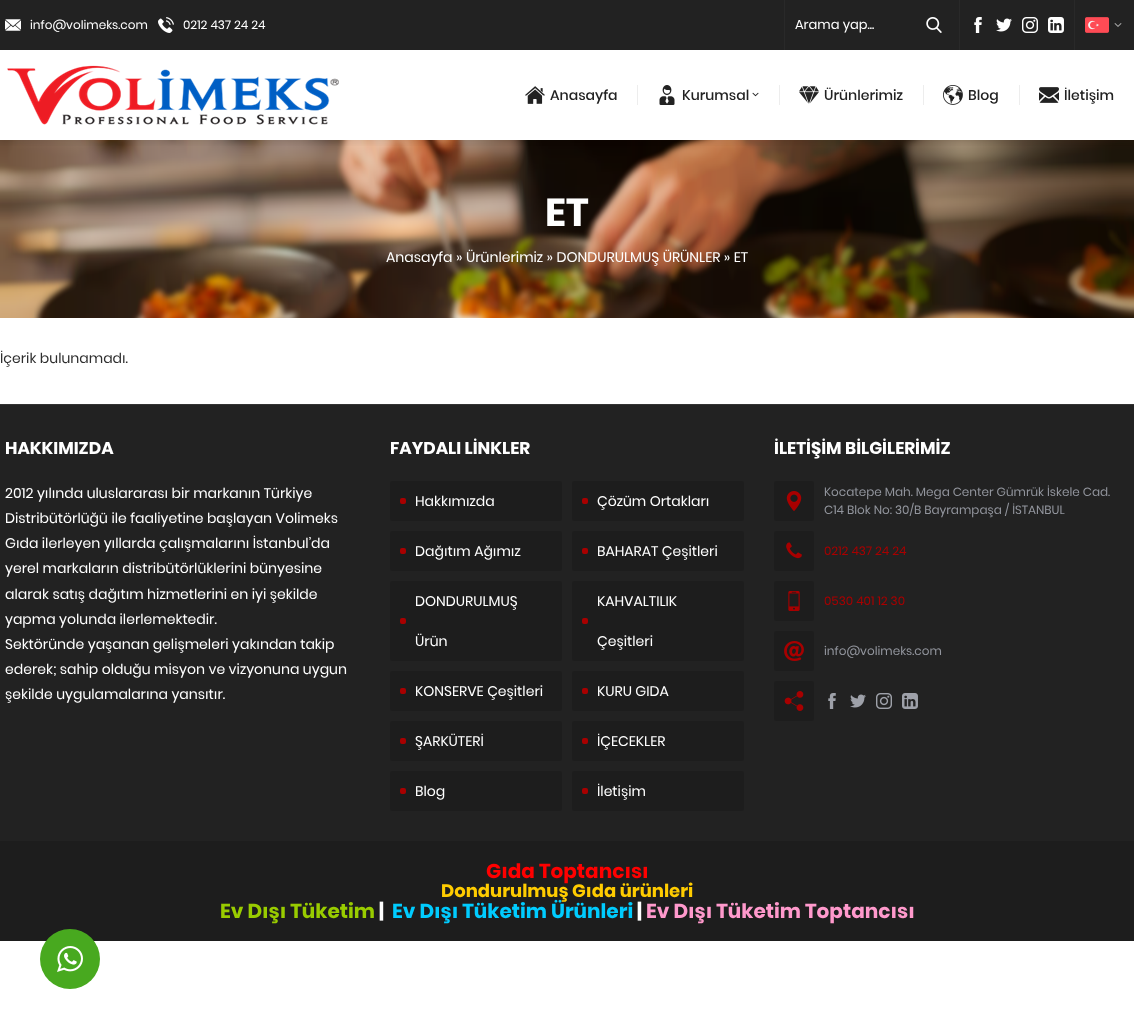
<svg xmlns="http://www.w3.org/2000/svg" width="1134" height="1029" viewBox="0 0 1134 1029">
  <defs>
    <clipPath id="clip1"><rect x="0" y="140" width="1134" height="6"/></clipPath>
  </defs>
  <rect width="100%" height="100%" fill="rgb(255,255,255)"/>
  <image x="0" y="140" width="1134" height="178" href="pic17.png"/>
  <g clip-path="url(#clip1)">
    <rect x="0" y="50" width="1134" height="90" fill="rgba(0,0,0,0.15)" filter="blur(5px)"/>
  </g>
  <rect x="0" y="0" width="1134" height="50" fill="rgb(34,34,34)"/>
  <image x="5" y="19" width="16" height="12" href="pic1.png"/>
  <text x="30" y="29" font-family="Poppins" font-size="12" fill="rgb(255,255,255)">info@volimeks.com</text>
  <image x="158" y="17" width="16" height="16" href="pic2.png"/>
  <text x="183" y="29" font-family="Poppins" font-size="12" fill="rgb(255,255,255)">0212 437 24 24</text>
  <rect x="784" y="0" width="1" height="50" fill="rgb(41,41,41)"/>
  <text x="795" y="29" font-family="Poppins" font-size="13" fill="rgb(255,255,255)">Arama yap...</text>
  <image x="926" y="17" width="16" height="16" href="pic3.png"/>
  <rect x="959" y="0" width="1" height="50" fill="rgb(41,41,41)"/>
  <image x="974" y="17" width="8" height="16" href="pic4.png"/>
  <image x="996" y="18" width="16" height="14" href="pic5.png"/>
  <image x="1022" y="17" width="16" height="16" href="pic6.png"/>
  <image x="1048" y="17" width="16" height="16" href="pic7.png"/>
  <rect x="1074" y="0" width="1" height="50" fill="rgb(41,41,41)"/>
  <image x="1085" y="17" width="24" height="16" href="pic8.png"/>
  <image x="1114" y="23" width="8" height="4" href="pic9.png"/>
  <image x="7" y="65" width="332" height="60" href="pic10.png"/>
  <image x="525" y="86" width="20" height="18" href="pic11.png"/>
  <text x="550" y="100" font-family="Poppins" font-size="14" font-weight="500" fill="rgb(34,34,34)">Anasayfa</text>
  <rect x="637" y="85" width="1" height="20" fill="rgb(237,237,237)"/>
  <image x="659" y="85" width="16" height="20" href="pic12.png"/>
  <text x="682" y="100" font-family="Poppins" font-size="14" font-weight="500" fill="rgb(34,34,34)">Kurumsal</text>
  <image x="752" y="92" width="7" height="5" href="pic13.png"/>
  <rect x="779" y="85" width="1" height="20" fill="rgb(237,237,237)"/>
  <image x="799" y="86" width="20" height="18" href="pic14.png"/>
  <text x="824" y="100" font-family="Poppins" font-size="14" font-weight="500" fill="rgb(34,34,34)">Ürünlerimiz</text>
  <rect x="923" y="85" width="1" height="20" fill="rgb(237,237,237)"/>
  <image x="943" y="85" width="20" height="20" href="pic15.png"/>
  <text x="968" y="100" font-family="Poppins" font-size="14" font-weight="500" fill="rgb(34,34,34)">Blog</text>
  <rect x="1019" y="85" width="1" height="20" fill="rgb(237,237,237)"/>
  <image x="1039" y="87" width="20" height="16" href="pic16.png"/>
  <text x="1064" y="100" font-family="Poppins" font-size="14" font-weight="500" fill="rgb(34,34,34)">İletişim</text>
  <text x="545" y="226" font-family="Poppins" font-size="39" font-weight="bold" fill="rgb(255,255,255)">ET</text>
  <text x="386" y="262" font-family="Poppins" font-size="14" fill="rgb(255,255,255)">Anasayfa » Ürünlerimiz » DONDURULMUŞ ÜRÜNLER » ET</text>
  <text x="0" y="363" font-family="Poppins" font-size="14" fill="rgb(46,46,46)">İçerik bulunamadı.</text>
  <rect x="0" y="405" width="1134" height="436" fill="rgb(34,34,34)"/>
  <rect x="0" y="404" width="1134" height="1" fill="rgb(51,51,51)"/>
  <text x="5" y="454" font-family="Poppins" font-size="17" font-weight="bold" fill="rgb(255,255,255)">HAKKIMIZDA</text>
  <g font-family="Poppins" font-size="14" fill="rgb(255,255,255)">
    <text>
      <tspan x="5" y="498">2012 yılında uluslararası bir markanın Türkiye</tspan>
      <tspan x="5" y="523">Distribütörlüğü ile faaliyetine başlayan Volimeks</tspan>
      <tspan x="5" y="548">Gıda ilerleyen yıllarda çalışmalarını İstanbul’da</tspan>
      <tspan x="5" y="573">yerel markaların distribütörlüklerini bünyesine</tspan>
      <tspan x="5" y="599">alarak satış dağıtım hizmetlerini en iyi şekilde</tspan>
      <tspan x="5" y="624">yapma yolunda ilerlemektedir.</tspan>
      <tspan x="5" y="649">Sektöründe yaşanan gelişmeleri yakından takip</tspan>
      <tspan x="5" y="674">ederek; sahip olduğu misyon ve vizyonuna uygun</tspan>
      <tspan x="5" y="699">şekilde uygulamalarına yansıtır.</tspan>
    </text>
  </g>
  <text x="390" y="454" font-family="Poppins" font-size="17" font-weight="bold" fill="rgb(255,255,255)">FAYDALI LİNKLER</text>
  <rect x="390" y="481" width="172" height="40" rx="3" fill="rgb(29,29,29)"/>
  <rect x="400" y="498" width="6" height="6" rx="2" fill="rgb(168,0,0)"/>
  <text x="415" y="506" font-family="Poppins" font-size="14" fill="rgb(255,255,255)">Hakkımızda</text>
  <rect x="572" y="481" width="172" height="40" rx="3" fill="rgb(29,29,29)"/>
  <rect x="582" y="498" width="6" height="6" rx="2" fill="rgb(168,0,0)"/>
  <text x="597" y="506" font-family="Poppins" font-size="14" fill="rgb(255,255,255)">Çözüm Ortakları</text>
  <rect x="390" y="531" width="172" height="40" rx="3" fill="rgb(29,29,29)"/>
  <rect x="400" y="548" width="6" height="6" rx="2" fill="rgb(168,0,0)"/>
  <text x="415" y="556" font-family="Poppins" font-size="14" fill="rgb(255,255,255)">Dağıtım Ağımız</text>
  <rect x="572" y="531" width="172" height="40" rx="3" fill="rgb(29,29,29)"/>
  <rect x="582" y="548" width="6" height="6" rx="2" fill="rgb(168,0,0)"/>
  <text x="597" y="556" font-family="Poppins" font-size="14" fill="rgb(255,255,255)">BAHARAT Çeşitleri</text>
  <rect x="390" y="581" width="172" height="80" rx="3" fill="rgb(29,29,29)"/>
  <text x="415" y="606" font-family="Poppins" font-size="14" fill="rgb(255,255,255)">DONDURULMUŞ</text>
  <rect x="400" y="618" width="6" height="6" rx="2" fill="rgb(168,0,0)"/>
  <text x="415" y="646" font-family="Poppins" font-size="14" fill="rgb(255,255,255)">Ürün</text>
  <rect x="572" y="581" width="172" height="80" rx="3" fill="rgb(29,29,29)"/>
  <text x="597" y="606" font-family="Poppins" font-size="14" fill="rgb(255,255,255)">KAHVALTILIK</text>
  <rect x="582" y="618" width="6" height="6" rx="2" fill="rgb(168,0,0)"/>
  <text x="597" y="646" font-family="Poppins" font-size="14" fill="rgb(255,255,255)">Çeşitleri</text>
  <rect x="390" y="671" width="172" height="40" rx="3" fill="rgb(29,29,29)"/>
  <rect x="400" y="688" width="6" height="6" rx="2" fill="rgb(168,0,0)"/>
  <text x="415" y="696" font-family="Poppins" font-size="14" fill="rgb(255,255,255)">KONSERVE Çeşitleri</text>
  <rect x="572" y="671" width="172" height="40" rx="3" fill="rgb(29,29,29)"/>
  <rect x="582" y="688" width="6" height="6" rx="2" fill="rgb(168,0,0)"/>
  <text x="597" y="696" font-family="Poppins" font-size="14" fill="rgb(255,255,255)">KURU GIDA</text>
  <rect x="390" y="721" width="172" height="40" rx="3" fill="rgb(29,29,29)"/>
  <rect x="400" y="738" width="6" height="6" rx="2" fill="rgb(168,0,0)"/>
  <text x="415" y="746" font-family="Poppins" font-size="14" fill="rgb(255,255,255)">ŞARKÜTERİ</text>
  <rect x="572" y="721" width="172" height="40" rx="3" fill="rgb(29,29,29)"/>
  <rect x="582" y="738" width="6" height="6" rx="2" fill="rgb(168,0,0)"/>
  <text x="597" y="746" font-family="Poppins" font-size="14" fill="rgb(255,255,255)">İÇECEKLER</text>
  <rect x="390" y="771" width="172" height="40" rx="3" fill="rgb(29,29,29)"/>
  <rect x="400" y="788" width="6" height="6" rx="2" fill="rgb(168,0,0)"/>
  <text x="415" y="796" font-family="Poppins" font-size="14" fill="rgb(255,255,255)">Blog</text>
  <rect x="572" y="771" width="172" height="40" rx="3" fill="rgb(29,29,29)"/>
  <rect x="582" y="788" width="6" height="6" rx="2" fill="rgb(168,0,0)"/>
  <text x="597" y="796" font-family="Poppins" font-size="14" fill="rgb(255,255,255)">İletişim</text>
  <text x="774" y="454" font-family="Poppins" font-size="17" font-weight="bold" fill="rgb(255,255,255)">İLETİŞİM BİLGİLERİMİZ</text>
  <rect x="774" y="481" width="40" height="40" rx="3" fill="rgb(29,29,29)"/>
  <image x="786" y="491" width="16" height="20" href="pic18.png"/>
  <g font-family="Poppins" font-size="12" fill="rgb(146,149,157)">
    <text>
      <tspan x="824" y="496">Kocatepe Mah. Mega Center Gümrük İskele Cad.</tspan>
      <tspan x="824" y="514">C14 Blok No: 30/B Bayrampaşa / İSTANBUL</tspan>
    </text>
  </g>
  <rect x="774" y="531" width="40" height="40" rx="3" fill="rgb(29,29,29)"/>
  <image x="786" y="542" width="16" height="17" href="pic19.png"/>
  <text x="824" y="555" font-family="Poppins" font-size="12" fill="rgb(168,0,0)">0212 437 24 24</text>
  <rect x="774" y="581" width="40" height="40" rx="3" fill="rgb(29,29,29)"/>
  <image x="788" y="591" width="12" height="20" href="pic20.png"/>
  <text x="824" y="605" font-family="Poppins" font-size="12" fill="rgb(168,0,0)">0530 401 12 30</text>
  <rect x="774" y="631" width="40" height="40" rx="3" fill="rgb(29,29,29)"/>
  <image x="784" y="641" width="20" height="20" href="pic21.png"/>
  <text x="824" y="655" font-family="Poppins" font-size="12" fill="rgb(146,149,157)">info@volimeks.com</text>
  <rect x="774" y="681" width="40" height="40" rx="3" fill="rgb(29,29,29)"/>
  <image x="784" y="691" width="20" height="20" href="pic22.png"/>
  <image x="828" y="693" width="8" height="16" href="pic23.png"/>
  <image x="850" y="694" width="16" height="14" href="pic24.png"/>
  <image x="876" y="693" width="16" height="16" href="pic25.png"/>
  <image x="902" y="693" width="16" height="16" href="pic26.png"/>
  <rect x="0" y="841" width="1134" height="100" fill="rgb(29,29,29)"/>
  <text x="486" y="878" font-family="Poppins" font-size="20" font-weight="bold" fill="rgb(255,0,0)">Gıda Toptancısı</text>
  <text x="441" y="897" font-family="Poppins" font-size="18" font-weight="bold" fill="rgb(255,204,0)">Dondurulmuş Gıda ürünleri</text>
  <text x="220" y="918" font-family="Poppins" font-size="20" font-weight="bold" fill="rgb(153,204,0)">Ev Dışı Tüketim</text>
  <text x="379" y="918" font-family="Poppins" font-size="20" font-weight="bold" fill="rgb(255,255,255)">|</text>
  <text x="392" y="918" font-family="Poppins" font-size="20" font-weight="bold" fill="rgb(0,204,255)">Ev Dışı Tüketim Ürünleri</text>
  <text x="637" y="918" font-family="Poppins" font-size="20" font-weight="bold" fill="rgb(255,255,255)">|</text>
  <text x="646" y="918" font-family="Poppins" font-size="20" font-weight="bold" fill="rgb(255,153,204)">Ev Dışı Tüketim Toptancısı</text>
  <circle cx="70" cy="959" r="30" fill="rgb(72,169,31)"/>
  <image x="57" y="946" width="26" height="26" href="pic27.png"/>
</svg>
